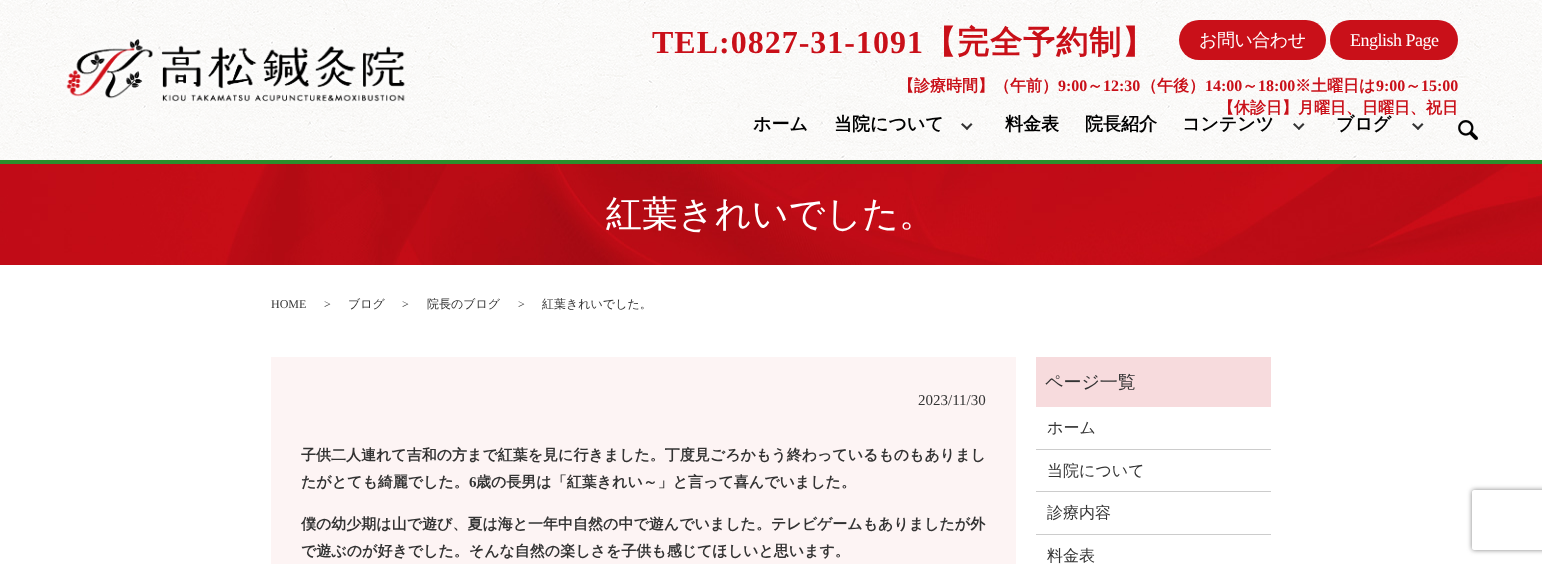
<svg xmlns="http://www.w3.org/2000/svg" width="1542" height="564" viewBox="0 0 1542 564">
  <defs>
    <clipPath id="clip1"><path d="M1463 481H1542V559H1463ZM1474 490H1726C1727 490 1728 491 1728 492V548C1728 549 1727 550 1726 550H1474C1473 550 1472 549 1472 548V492C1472 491 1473 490 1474 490Z" clip-rule="evenodd"/></clipPath>
  </defs>
  <rect width="100%" height="100%" fill="rgb(255,255,255)"/>
  <rect x="0" y="160" width="1542" height="4" fill="rgb(43,142,44)"/>
  <image x="0" y="0" width="1542" height="160" href="pic1.png"/>
  <image x="66" y="39" width="339" height="65" href="pic2.png"/>
  <text x="652" y="53" font-family="Liberation Serif" font-size="32" font-weight="bold" letter-spacing="1" fill="rgb(201,16,25)">TEL:0827-31-1091</text>
  <text x="924" y="53" font-family="WenQuanYi Zen Hei" font-size="32" font-weight="bold" letter-spacing="1" fill="rgb(201,16,25)">【完全予約制】</text>
  <rect x="1179" y="20" width="147" height="40" rx="20" fill="rgb(201,16,25)"/>
  <text x="1199" y="46" font-family="WenQuanYi Zen Hei" font-size="18" font-weight="500" letter-spacing="-0.5" fill="rgb(255,255,255)">お問い合わせ</text>
  <rect x="1330" y="20" width="128" height="40" rx="20" fill="rgb(201,16,25)"/>
  <text x="1350" y="46" font-family="Liberation Serif" font-size="18" letter-spacing="-0.5" fill="rgb(255,255,255)">English Page</text>
  <text x="898" y="91" font-family="WenQuanYi Zen Hei" font-size="16" font-weight="bold" fill="rgb(201,16,25)">【診療時間】（午前）</text>
  <text x="1058" y="91" font-family="Liberation Serif" font-size="16" font-weight="bold" fill="rgb(201,16,25)">9:00</text>
  <text x="1087" y="91" font-family="WenQuanYi Zen Hei" font-size="16" font-weight="bold" fill="rgb(201,16,25)">～</text>
  <text x="1103" y="91" font-family="Liberation Serif" font-size="16" font-weight="bold" fill="rgb(201,16,25)">12:30</text>
  <text x="1141" y="91" font-family="WenQuanYi Zen Hei" font-size="16" font-weight="bold" fill="rgb(201,16,25)">（午後）</text>
  <text x="1205" y="91" font-family="Liberation Serif" font-size="16" font-weight="bold" fill="rgb(201,16,25)">14:00</text>
  <text x="1242" y="91" font-family="WenQuanYi Zen Hei" font-size="16" font-weight="bold" fill="rgb(201,16,25)">～</text>
  <text x="1258" y="91" font-family="Liberation Serif" font-size="16" font-weight="bold" fill="rgb(201,16,25)">18:00</text>
  <text x="1295" y="91" font-family="WenQuanYi Zen Hei" font-size="16" font-weight="bold" fill="rgb(201,16,25)">※土曜日は</text>
  <text x="1376" y="91" font-family="Liberation Serif" font-size="16" font-weight="bold" fill="rgb(201,16,25)">9:00</text>
  <text x="1405" y="91" font-family="WenQuanYi Zen Hei" font-size="16" font-weight="bold" fill="rgb(201,16,25)">～</text>
  <text x="1421" y="91" font-family="Liberation Serif" font-size="16" font-weight="bold" fill="rgb(201,16,25)">15:00</text>
  <text x="1218" y="113" font-family="WenQuanYi Zen Hei" font-size="16" font-weight="bold" fill="rgb(201,16,25)">【休診日】月曜日、日曜日、祝日</text>
  <g font-family="WenQuanYi Zen Hei" font-size="18" font-weight="bold" fill="rgb(0,0,0)">
    <text x="753" y="130">ホーム</text>
    <text x="834" y="130">当院について</text>
  </g>
  <path d="M972.5 124.5L967 130L965.5 128.5L971 123Z" fill="rgb(51,51,51)"/>
  <path d="M968.5 128.5L967 130L961 124.5L962.5 123Z" fill="rgb(51,51,51)"/>
  <g font-family="WenQuanYi Zen Hei" font-size="18" font-weight="bold" fill="rgb(0,0,0)">
    <text x="1005" y="130">料金表</text>
    <text x="1085" y="130">院長紹介</text>
    <text x="1182" y="130">コンテンツ</text>
  </g>
  <path d="M1304.5 124.5L1299 130L1297.5 128.5L1303 123Z" fill="rgb(51,51,51)"/>
  <path d="M1300 128.5L1299 130L1293 124.5L1294.5 123Z" fill="rgb(51,51,51)"/>
  <text x="1336" y="130" font-family="WenQuanYi Zen Hei" font-size="18" font-weight="bold" fill="rgb(0,0,0)">ブログ</text>
  <path d="M1423.5 124.5L1418 130L1416.5 128.5L1422 123Z" fill="rgb(51,51,51)"/>
  <path d="M1419.5 128.5L1418 130L1412 124.5L1413.5 123Z" fill="rgb(51,51,51)"/>
  <image x="1458" y="120" width="20" height="20" href="pic3.png"/>
  <image x="0" y="164" width="1542" height="101" href="pic4.png"/>
  <text x="606" y="226" font-family="WenQuanYi Zen Hei" font-size="36" font-weight="500" fill="rgb(255,255,255)">紅葉きれいでした。</text>
  <g font-family="Liberation Serif" font-size="12" fill="rgb(51,51,51)">
    <text x="271" y="308">HOME</text>
    <text x="324" y="308">&gt;</text>
  </g>
  <text x="348" y="308" font-family="WenQuanYi Zen Hei" font-size="12" font-weight="500" fill="rgb(51,51,51)">ブログ</text>
  <text x="402" y="308" font-family="Liberation Serif" font-size="12" fill="rgb(51,51,51)">&gt;</text>
  <text x="427" y="308" font-family="WenQuanYi Zen Hei" font-size="12" font-weight="500" fill="rgb(51,51,51)">院長のブログ</text>
  <text x="518" y="308" font-family="Liberation Serif" font-size="12" fill="rgb(51,51,51)">&gt;</text>
  <text x="542" y="308" font-family="WenQuanYi Zen Hei" font-size="12" font-weight="500" fill="rgb(51,51,51)">紅葉きれいでした。</text>
  <rect x="271" y="357" width="745" height="207" fill="rgb(253,244,244)"/>
  <text x="918" y="405" font-family="Liberation Serif" font-size="15" fill="rgb(51,51,51)">2023/11/30</text>
  <g font-family="WenQuanYi Zen Hei" font-size="15" font-weight="bold" fill="rgb(51,51,51)">
    <text>
      <tspan x="301" y="460">子供二人連れて吉和の方まで紅葉を見に行きました。丁度見ごろかもう終わっているものもありまし</tspan>
      <tspan x="301" y="487">たがとても綺麗でした。</tspan>
    </text>
  </g>
  <text x="469" y="487" font-family="Liberation Serif" font-size="15" font-weight="bold" fill="rgb(51,51,51)">6</text>
  <g font-family="WenQuanYi Zen Hei" font-size="15" font-weight="bold" fill="rgb(51,51,51)">
    <text x="476" y="487">歳の長男は「紅葉きれい～」と言って喜んでいました。</text>
    <text>
      <tspan x="301" y="529">僕の幼少期は山で遊び、夏は海と一年中自然の中で遊んでいました。テレビゲームもありましたが外</tspan>
      <tspan x="301" y="556">で遊ぶのが好きでした。そんな自然の楽しさを子供も感じてほしいと思います。</tspan>
    </text>
  </g>
  <rect x="1036" y="357" width="235" height="50" fill="rgb(247,219,221)"/>
  <text x="1045" y="388" font-family="WenQuanYi Zen Hei" font-size="18" font-weight="500" fill="rgb(51,51,51)">ページ一覧</text>
  <rect x="1036" y="449" width="235" height="1" fill="rgb(204,204,204)"/>
  <text x="1047" y="433" font-family="WenQuanYi Zen Hei" font-size="16" font-weight="500" fill="rgb(51,51,51)">ホーム</text>
  <rect x="1036" y="491" width="235" height="1" fill="rgb(204,204,204)"/>
  <text x="1047" y="476" font-family="WenQuanYi Zen Hei" font-size="16" font-weight="500" fill="rgb(51,51,51)">当院について</text>
  <rect x="1036" y="534" width="235" height="1" fill="rgb(204,204,204)"/>
  <g font-family="WenQuanYi Zen Hei" font-size="16" font-weight="500" fill="rgb(51,51,51)">
    <text x="1047" y="518">診療内容</text>
    <text x="1047" y="561">料金表</text>
  </g>
  <g clip-path="url(#clip1)">
    <rect x="1472" y="490" width="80" height="60" rx="2" fill="rgb(128,128,128)" filter="blur(2.5px)"/>
  </g>
</svg>
